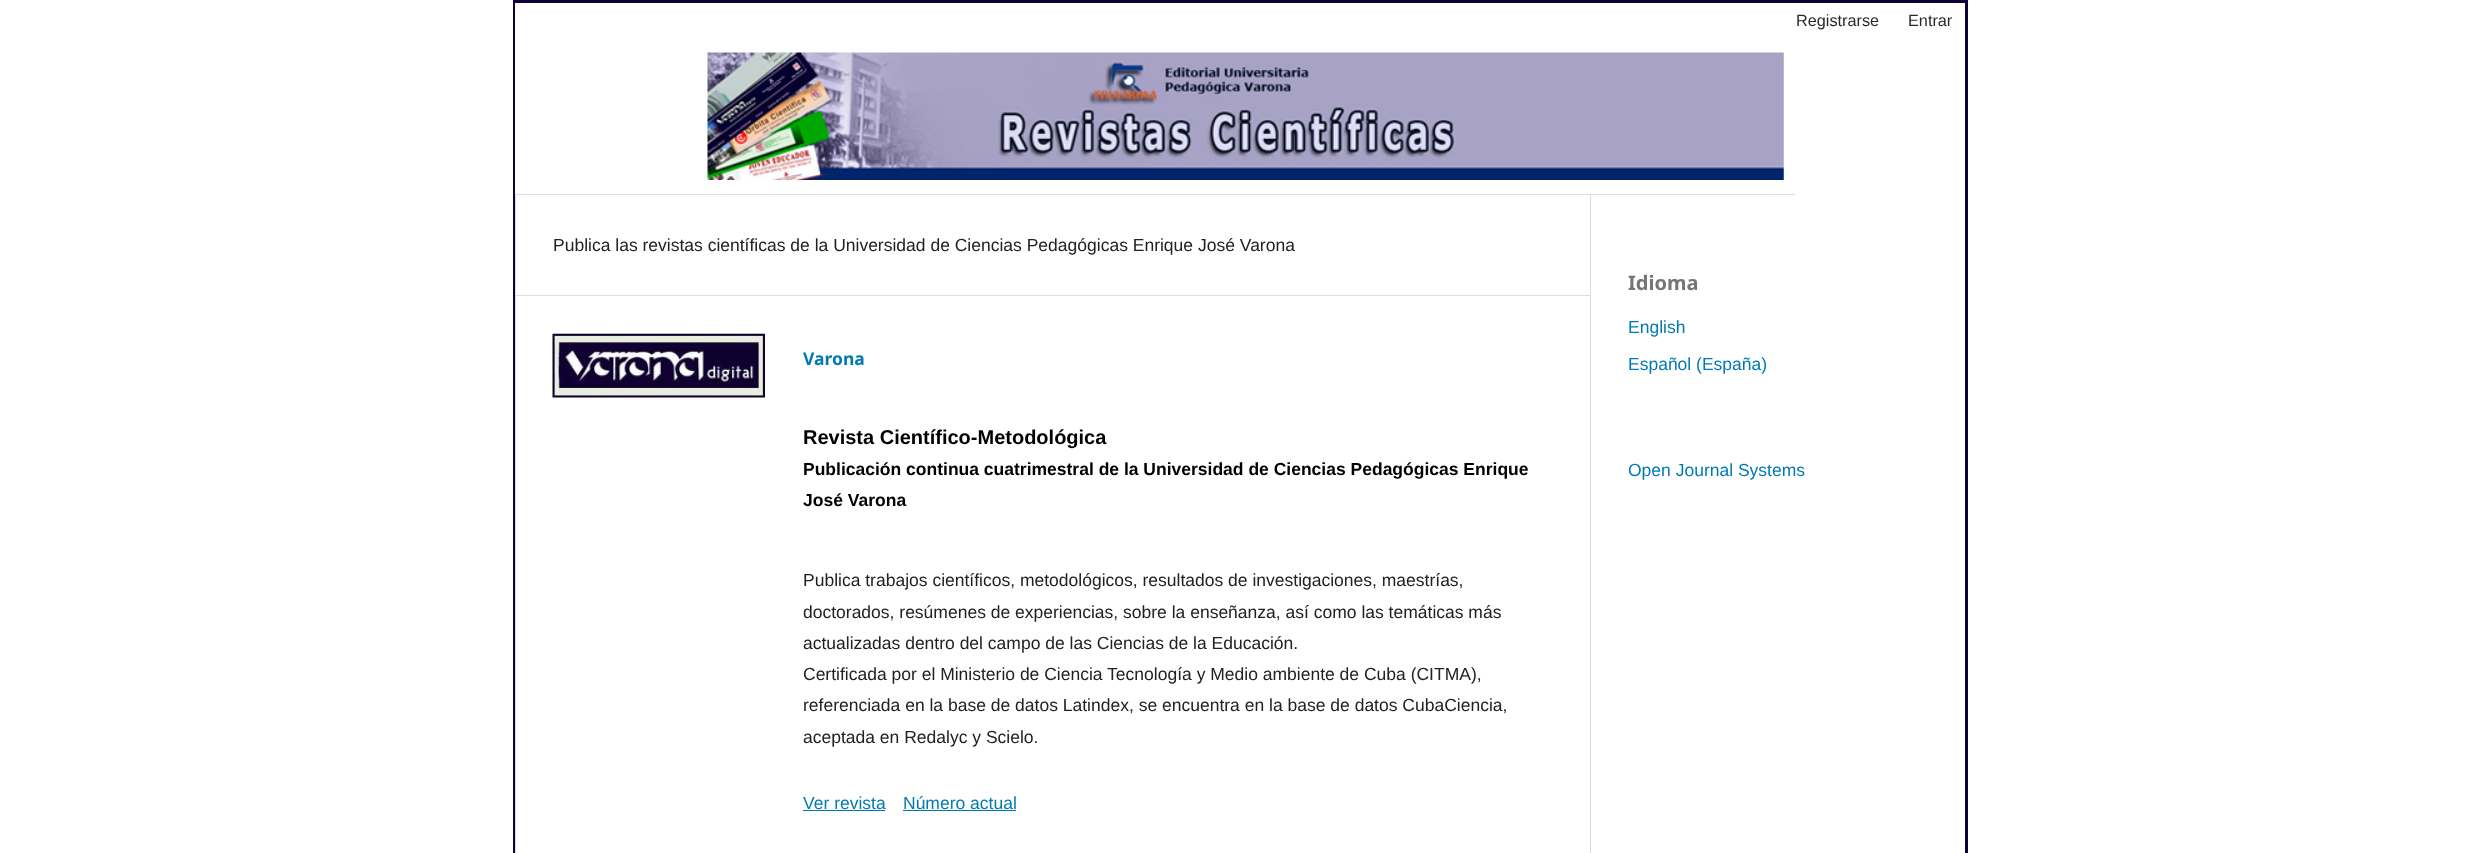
<svg xmlns="http://www.w3.org/2000/svg" width="2480" height="853" viewBox="0 0 2480 853">
  <rect width="100%" height="100%" fill="rgb(255,255,255)"/>
  <rect x="514.5" y="1.5" width="1452" height="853" fill="none" stroke="rgb(15,1,52)" stroke-width="3"/>
  <rect x="515" y="3" width="1" height="191" fill="rgb(255,255,255)"/>
  <rect x="515" y="194" width="1280" height="1" fill="rgb(221,221,221)"/>
  <g font-family="Liberation Sans" font-size="16.25" fill="rgb(41,41,41)">
    <text x="1796" y="26">Registrarse</text>
    <text x="1908" y="26">Entrar</text>
  </g>
  <image x="707" y="52" width="1077" height="128" href="pic1.png"/>
  <rect x="515" y="295" width="1075" height="1" fill="rgb(221,221,221)"/>
  <rect x="515" y="195" width="1" height="658" fill="rgb(221,221,221)"/>
  <text x="553" y="251" font-family="Liberation Sans" font-size="17.5" fill="rgb(33,33,33)">Publica las revistas científicas de la Universidad de Ciencias Pedagógicas Enrique José Varona</text>
  <image x="552" y="333" width="213" height="65" href="pic2.png"/>
  <text x="803" y="365" font-family="Noto Sans" font-size="17.5" font-weight="bold" fill="rgb(0,122,178)">Varona</text>
  <text x="803" y="444" font-family="Liberation Sans" font-size="20" font-weight="bold" fill="rgb(0,0,0)">Revista Científico-Metodológica</text>
  <g font-family="Liberation Sans" font-size="17.5" font-weight="bold" fill="rgb(0,0,0)">
    <text>
      <tspan x="803" y="475">Publicación continua cuatrimestral de la Universidad de Ciencias Pedagógicas Enrique</tspan>
      <tspan x="803" y="506">José Varona</tspan>
    </text>
  </g>
  <g font-family="Liberation Sans" font-size="17.5" fill="rgb(33,33,33)">
    <text>
      <tspan x="803" y="586">Publica trabajos científicos, metodológicos, resultados de investigaciones, maestrías,</tspan>
      <tspan x="803" y="618">doctorados, resúmenes de experiencias, sobre la enseñanza, así como las temáticas más</tspan>
      <tspan x="803" y="649">actualizadas dentro del campo de las Ciencias de la Educación.</tspan>
      <tspan x="803" y="680">Certificada por el Ministerio de Ciencia Tecnología y Medio ambiente de Cuba (CITMA),</tspan>
      <tspan x="803" y="711">referenciada en la base de datos Latindex, se encuentra en la base de datos CubaCiencia,</tspan>
      <tspan x="803" y="743">aceptada en Redalyc y Scielo.</tspan>
    </text>
  </g>
  <text x="803" y="809" font-family="Liberation Sans" font-size="17.5" fill="rgb(0,122,178)">Ver revista</text>
  <rect x="803" y="810" width="82" height="1" fill="rgb(0,122,178)"/>
  <text x="903" y="809" font-family="Liberation Sans" font-size="17.5" fill="rgb(0,122,178)">Número actual</text>
  <rect x="903" y="810" width="113" height="1" fill="rgb(0,122,178)"/>
  <rect x="1590" y="195" width="1" height="658" fill="rgb(221,221,221)"/>
  <text x="1628" y="290" font-family="Noto Sans" font-size="20" font-weight="bold" fill="rgb(117,117,117)">Idioma</text>
  <g font-family="Liberation Sans" font-size="17.5" fill="rgb(0,122,178)">
    <text x="1628" y="333">English</text>
    <text x="1628" y="370">Español (España)</text>
    <text x="1628" y="476">Open Journal Systems</text>
  </g>
</svg>
